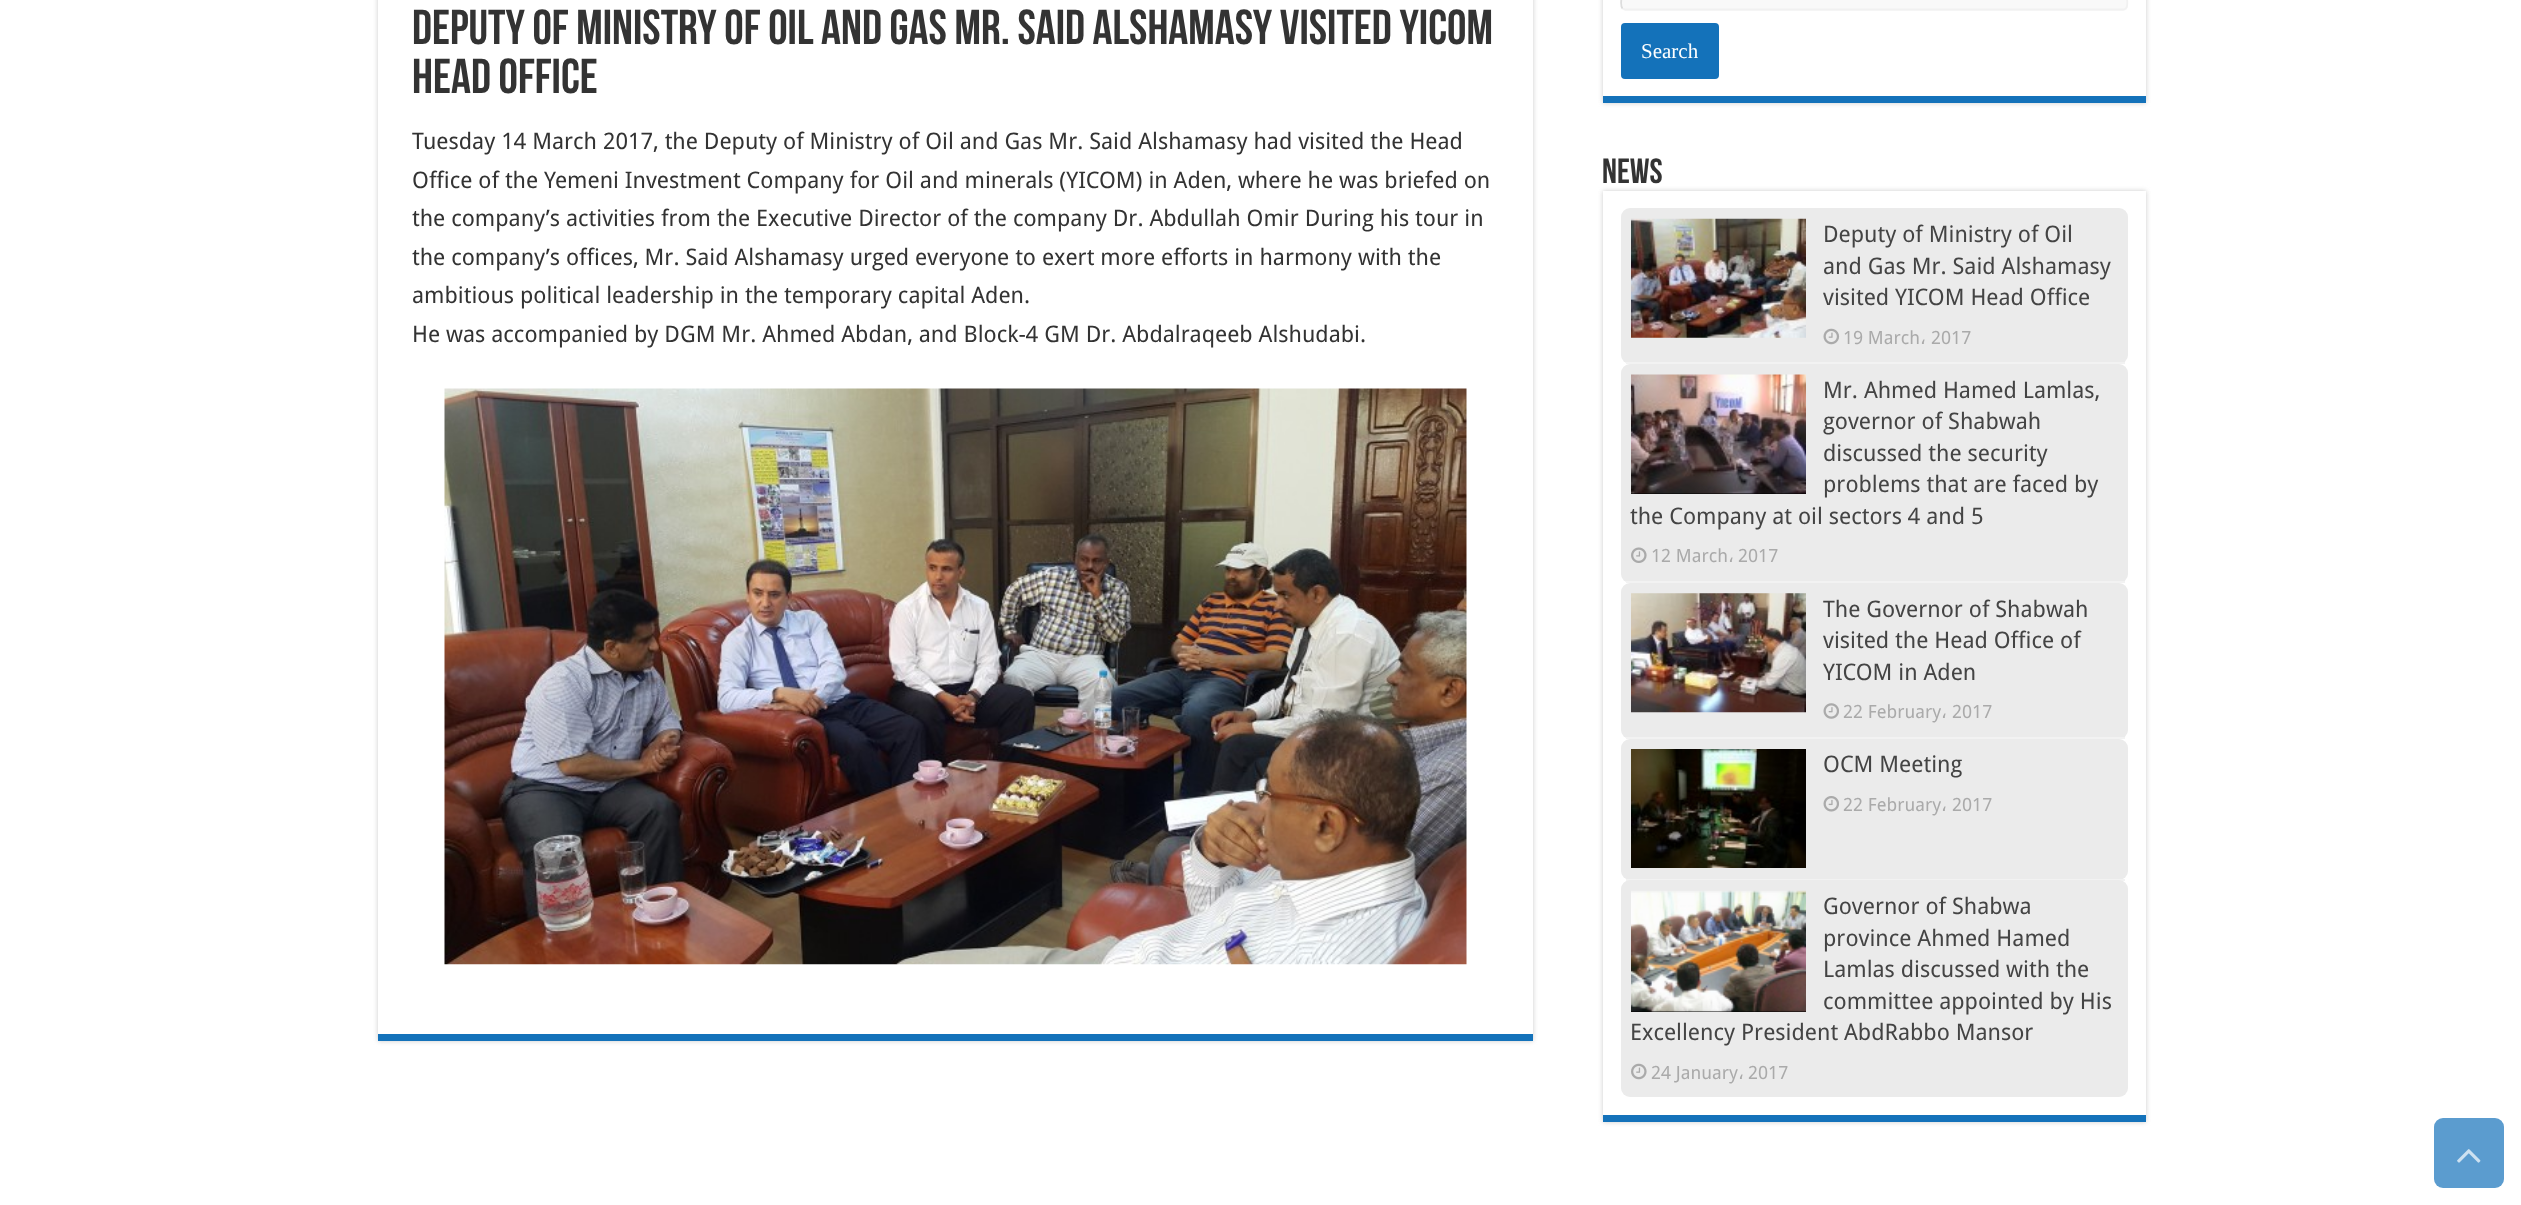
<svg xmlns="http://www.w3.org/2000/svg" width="2521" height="1205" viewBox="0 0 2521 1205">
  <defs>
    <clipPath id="clip1"><path d="M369 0H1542V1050H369ZM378-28H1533V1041H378Z" clip-rule="evenodd"/></clipPath>
  </defs>
  <rect width="100%" height="100%" fill="rgb(255,255,255)"/>
  <g clip-path="url(#clip1)">
    <rect x="378" y="-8" width="1155" height="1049" fill="rgb(202,202,202)" filter="blur(2.5px)"/>
  </g>
  <rect x="378" y="1034" width="1155" height="7" fill="rgb(20,114,186)"/>
  <g font-family="Bebas Neue" font-size="49" font-weight="bold" fill="rgb(51,51,51)">
    <text>
      <tspan x="412" y="44">Deputy of Ministry of Oil and Gas Mr. Said Alshamasy visited YICOM</tspan>
      <tspan x="412" y="93">Head Office</tspan>
    </text>
  </g>
  <g font-family="Droid Sans" font-size="22.75" fill="rgb(51,51,51)">
    <text>
      <tspan x="412" y="149">Tuesday 14 March 2017, the Deputy of Ministry of Oil and Gas Mr. Said Alshamasy had visited the Head</tspan>
      <tspan x="412" y="188">Office of the Yemeni Investment Company for Oil and minerals (YICOM) in Aden, where he was briefed on</tspan>
      <tspan x="412" y="226">the company’s activities from the Executive Director of the company Dr. Abdullah Omir During his tour in</tspan>
      <tspan x="412" y="265">the company’s offices, Mr. Said Alshamasy urged everyone to exert more efforts in harmony with the</tspan>
      <tspan x="412" y="303">ambitious political leadership in the temporary capital Aden.</tspan>
      <tspan x="412" y="342">He was accompanied by DGM Mr. Ahmed Abdan, and Block-4 GM Dr. Abdalraqeeb Alshudabi.</tspan>
    </text>
  </g>
  <image x="444" y="388" width="1023" height="577" href="pic1.png"/>
  <rect x="1603" y="-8" width="543" height="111" fill="rgb(202,202,202)" filter="blur(2.5px)"/>
  <rect x="1603" y="0" width="543" height="96" fill="rgb(255,255,255)"/>
  <rect x="1603" y="96" width="543" height="7" fill="rgb(20,114,186)"/>
  <rect x="1621" y="-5" width="507" height="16" rx="5" fill="rgb(249,249,249)"/>
  <path d="M2126-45C2128.5-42.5 2127-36 2127-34V-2.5C2127 .5 2129 9.5 2123 9.5H1625.5L1622.5 8.5" fill="none" stroke="rgb(241,241,241)" stroke-width="1.8"/>
  <path d="M1622.5 8.5C1620 6 1621.5-.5 1621.5-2.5V-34C1621.5-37.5 1619.5-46.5 1626-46.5H2123L2126-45" fill="none" stroke="rgb(221,221,221)" stroke-width="1.8"/>
  <rect x="1621" y="23" width="98" height="56" rx="4" fill="rgb(20,114,186)"/>
  <text x="1641" y="58" font-family="Liberation Serif" font-size="21" fill="rgb(255,255,255)">Search</text>
  <rect x="1603" y="191" width="543" height="931" fill="rgb(202,202,202)" filter="blur(2.5px)"/>
  <text x="1602" y="183" font-family="Bebas Neue" font-size="35" font-weight="bold" fill="rgb(51,51,51)">News</text>
  <rect x="1603" y="191" width="543" height="924" fill="rgb(255,255,255)"/>
  <rect x="1603" y="1115" width="543" height="7" fill="rgb(20,114,186)"/>
  <rect x="1621" y="208" width="507" height="156" rx="9" fill="rgb(235,235,235)"/>
  <rect x="1626" y="362" width="499" height="2" fill="rgb(242,242,242)"/>
  <image x="1631" y="218" width="175" height="120" href="pic2.png"/>
  <g font-family="Droid Sans" font-size="22.75" fill="rgb(68,68,68)">
    <text>
      <tspan x="1823" y="242">Deputy of Ministry of Oil</tspan>
      <tspan x="1823" y="274">and Gas Mr. Said Alshamasy</tspan>
      <tspan x="1823" y="305">visited YICOM Head Office</tspan>
    </text>
  </g>
  <image x="1823" y="328" width="17" height="17" href="pic3.png"/>
  <text x="1843" y="344" font-family="Droid Sans" font-size="18.25" fill="rgb(170,170,170)">19 March</text>
  <text x="1920" y="344" font-family="DejaVu Sans" font-size="18.25" fill="rgb(170,170,170)">،</text>
  <text x="1931" y="344" font-family="Droid Sans" font-size="18.25" fill="rgb(170,170,170)">2017</text>
  <rect x="1621" y="364" width="507" height="219" rx="9" fill="rgb(235,235,235)"/>
  <rect x="1626" y="581" width="499" height="2" fill="rgb(242,242,242)"/>
  <rect x="1631" y="493" width="175" height="1" fill="rgb(0,0,0)"/>
  <image x="1631" y="374" width="175" height="120" href="pic4.png"/>
  <g font-family="Droid Sans" font-size="22.75" fill="rgb(68,68,68)">
    <text>
      <tspan x="1823" y="398">Mr. Ahmed Hamed Lamlas,</tspan>
      <tspan x="1823" y="429">governor of Shabwah</tspan>
      <tspan x="1823" y="461">discussed the security</tspan>
      <tspan x="1823" y="492">problems that are faced by</tspan>
    </text>
    <text x="1630" y="524">the Company at oil sectors 4 and 5</text>
  </g>
  <image x="1631" y="547" width="16" height="16" href="pic5.png"/>
  <text x="1651" y="562" font-family="Droid Sans" font-size="18.25" fill="rgb(170,170,170)">12 March</text>
  <text x="1728" y="562" font-family="DejaVu Sans" font-size="18.25" fill="rgb(170,170,170)">،</text>
  <text x="1738" y="562" font-family="Droid Sans" font-size="18.25" fill="rgb(170,170,170)">2017</text>
  <rect x="1621" y="583" width="507" height="156" rx="9" fill="rgb(235,235,235)"/>
  <rect x="1626" y="737" width="499" height="2" fill="rgb(242,242,242)"/>
  <image x="1631" y="593" width="175" height="120" href="pic6.png"/>
  <g font-family="Droid Sans" font-size="22.75" fill="rgb(68,68,68)">
    <text>
      <tspan x="1823" y="617">The Governor of Shabwah</tspan>
      <tspan x="1823" y="648">visited the Head Office of</tspan>
      <tspan x="1823" y="680">YICOM in Aden</tspan>
    </text>
  </g>
  <image x="1823" y="703" width="16" height="16" href="pic7.png"/>
  <text x="1843" y="718" font-family="Droid Sans" font-size="18.25" fill="rgb(170,170,170)">22 February</text>
  <text x="1941" y="718" font-family="DejaVu Sans" font-size="18.25" fill="rgb(170,170,170)">،</text>
  <text x="1952" y="718" font-family="Droid Sans" font-size="18.25" fill="rgb(170,170,170)">2017</text>
  <rect x="1621" y="739" width="507" height="141" rx="9" fill="rgb(235,235,235)"/>
  <rect x="1626" y="879" width="499" height="2" fill="rgb(242,242,242)"/>
  <image x="1631" y="749" width="175" height="119" href="pic8.png"/>
  <text x="1823" y="772" font-family="Droid Sans" font-size="22.75" fill="rgb(68,68,68)">OCM Meeting</text>
  <image x="1823" y="796" width="16" height="16" href="pic9.png"/>
  <text x="1843" y="811" font-family="Droid Sans" font-size="18.25" fill="rgb(170,170,170)">22 February</text>
  <text x="1941" y="811" font-family="DejaVu Sans" font-size="18.25" fill="rgb(170,170,170)">،</text>
  <text x="1952" y="811" font-family="Droid Sans" font-size="18.25" fill="rgb(170,170,170)">2017</text>
  <rect x="1621" y="880" width="507" height="217" rx="9" fill="rgb(235,235,235)"/>
  <rect x="1631" y="1011" width="175" height="1" fill="rgb(0,0,0)"/>
  <image x="1631" y="890" width="175" height="122" href="pic10.png"/>
  <g font-family="Droid Sans" font-size="22.75" fill="rgb(68,68,68)">
    <text>
      <tspan x="1823" y="914">Governor of Shabwa</tspan>
      <tspan x="1823" y="946">province Ahmed Hamed</tspan>
      <tspan x="1823" y="977">Lamlas discussed with the</tspan>
      <tspan x="1823" y="1009">committee appointed by His</tspan>
    </text>
    <text x="1630" y="1040">Excellency President AbdRabbo Mansor</text>
  </g>
  <image x="1631" y="1063" width="16" height="17" href="pic11.png"/>
  <text x="1651" y="1079" font-family="Droid Sans" font-size="18.25" fill="rgb(170,170,170)">24 January</text>
  <text x="1738" y="1079" font-family="DejaVu Sans" font-size="18.25" fill="rgb(170,170,170)">،</text>
  <text x="1748" y="1079" font-family="Droid Sans" font-size="18.25" fill="rgb(170,170,170)">2017</text>
  <rect x="2434" y="1118" width="70" height="70" rx="9" fill="rgb(91,156,207)"/>
  <image x="2457" y="1149" width="24" height="14" href="pic12.png"/>
</svg>
